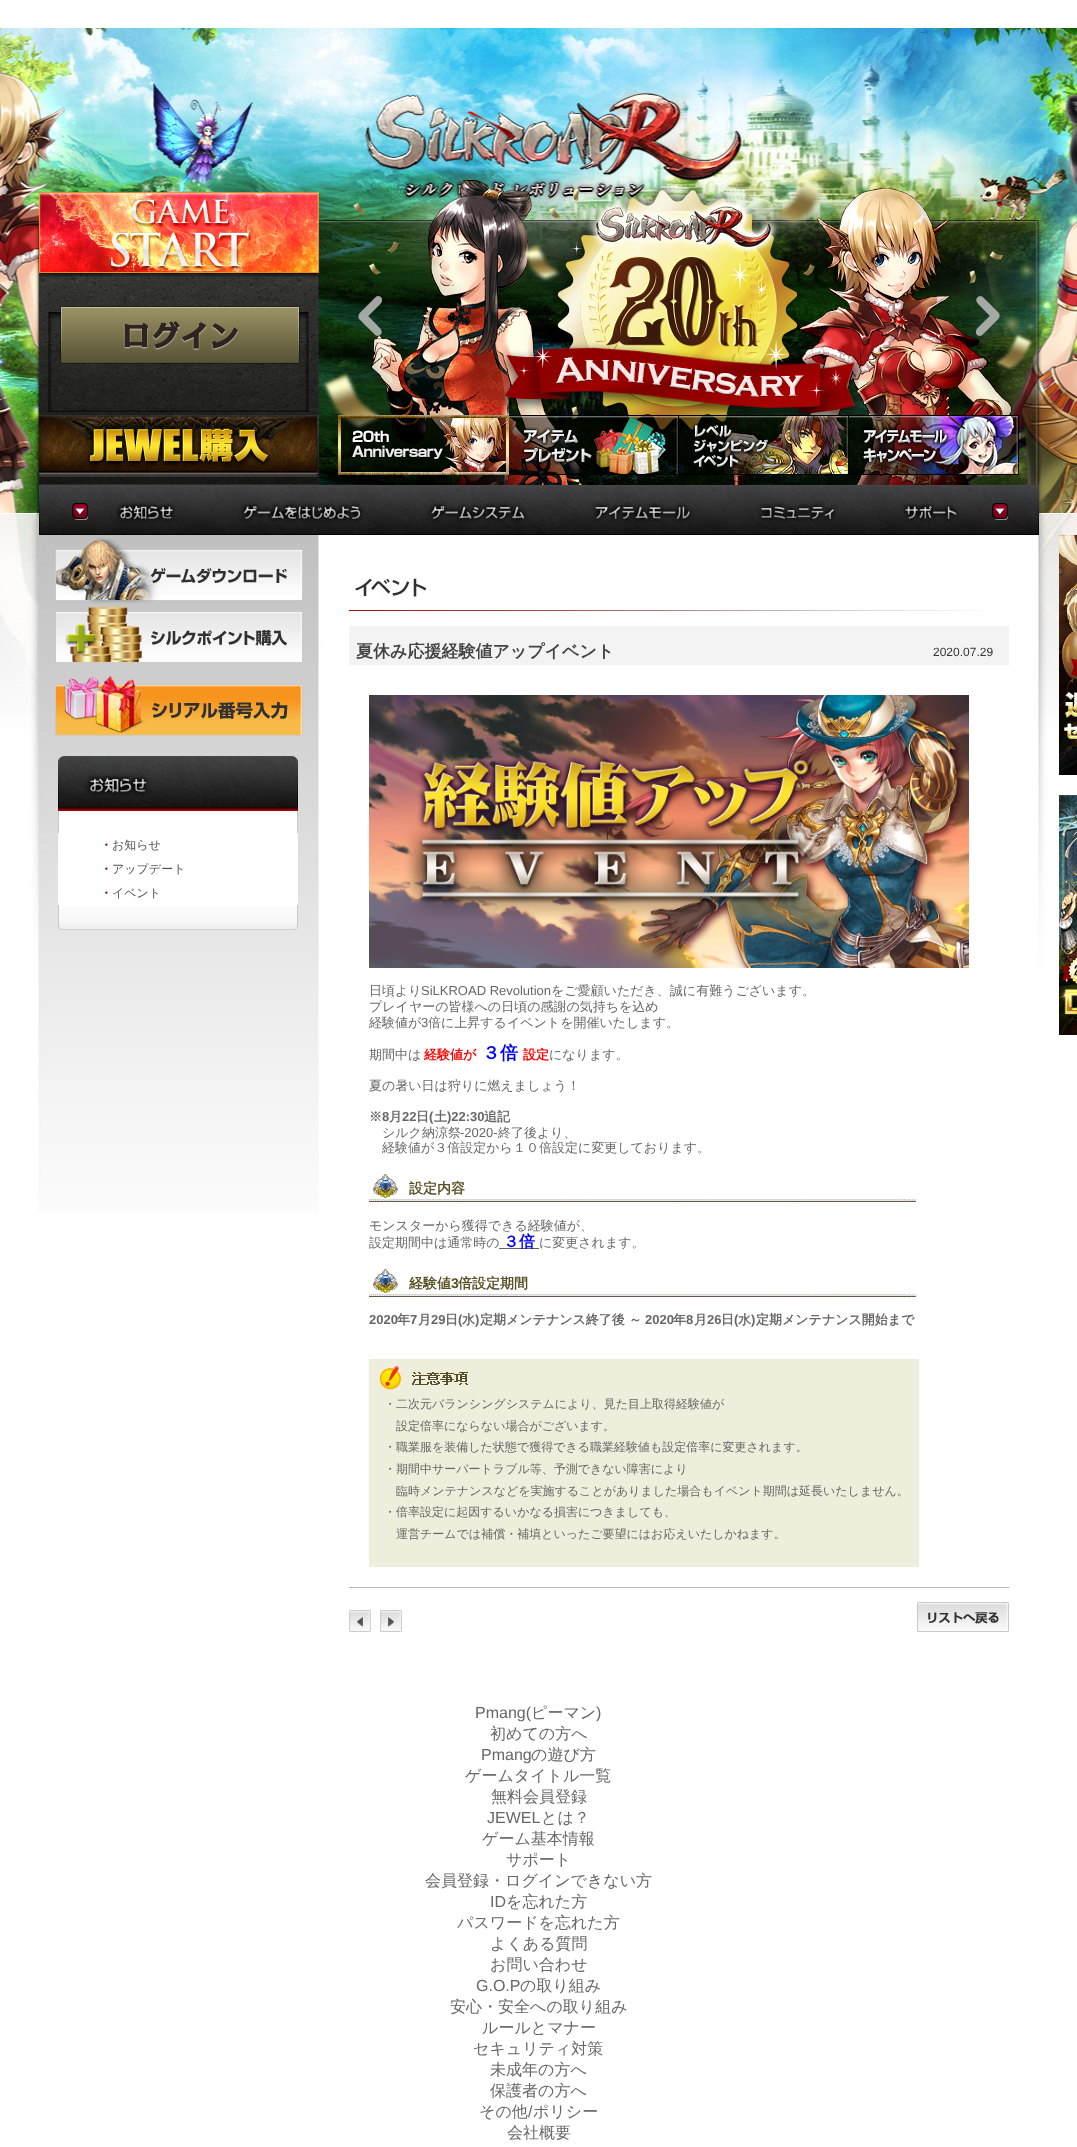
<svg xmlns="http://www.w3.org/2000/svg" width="1077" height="2147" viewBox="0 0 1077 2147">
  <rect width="100%" height="100%" fill="rgb(255,255,255)"/>
  <image x="0" y="28" width="1077" height="1184" href="pic1.png"/>
  <image x="39" y="192" width="280" height="85" href="pic2.png"/>
  <image x="39" y="192" width="280" height="85" href="pic3.png"/>
  <image x="60" y="306" width="240" height="58" href="pic4.png"/>
  <image x="39" y="415" width="280" height="70" href="pic5.png"/>
  <image x="322" y="178" width="711" height="307" href="pic6.png"/>
  <image x="358" y="296" width="24" height="40" href="pic7.png"/>
  <image x="976" y="296" width="24" height="40" href="pic8.png"/>
  <image x="341" y="415" width="677" height="60" href="pic9.png"/>
  <image x="349" y="418" width="157" height="54" href="pic14.png"/>
  <image x="338" y="415" width="171" height="60" href="pic10.png"/>
  <image x="509" y="415" width="170" height="60" href="pic11.png"/>
  <image x="678" y="415" width="170" height="60" href="pic12.png"/>
  <image x="848" y="415" width="171" height="60" href="pic13.png"/>
  <image x="39" y="485" width="1000" height="50" href="pic15.png"/>
  <image x="349" y="577" width="640" height="34" href="pic16.png"/>
  <rect x="349" y="626" width="660" height="39" fill="rgb(243,243,243)"/>
  <text x="356" y="657" font-family="WenQuanYi Zen Hei" font-size="17" font-weight="bold" fill="rgb(67,67,67)">夏休み応援経験値アップイベント</text>
  <text x="933" y="656" font-family="Liberation Sans" font-size="12" fill="rgb(51,51,51)">2020.07.29</text>
  <image x="369" y="695" width="600" height="273" href="pic17.png"/>
  <text x="369" y="995" font-family="WenQuanYi Zen Hei" font-size="13" font-weight="500" fill="rgb(103,103,103)">日頃より</text>
  <text x="421" y="995" font-family="Liberation Sans" font-size="13" fill="rgb(103,103,103)">SiLKROAD Revolution</text>
  <g font-family="WenQuanYi Zen Hei" font-size="13" font-weight="500" fill="rgb(103,103,103)">
    <text x="551" y="995">をご愛顧いただき、誠に有難うございます。</text>
    <text>
      <tspan x="369" y="1011">プレイヤーの皆様への日頃の感謝の気持ちを込め</tspan>
      <tspan x="369" y="1027">経験値が</tspan>
    </text>
  </g>
  <text x="421" y="1027" font-family="Liberation Sans" font-size="13" fill="rgb(103,103,103)">3</text>
  <g font-family="WenQuanYi Zen Hei" font-size="13" font-weight="500" fill="rgb(103,103,103)">
    <text x="428" y="1027">倍に上昇するイベントを開催いたします。</text>
    <text x="369" y="1059">期間中は</text>
  </g>
  <text x="424" y="1059" font-family="WenQuanYi Zen Hei" font-size="13" font-weight="bold" fill="rgb(255,0,0)">経験値が</text>
  <text x="482" y="1059" font-family="WenQuanYi Zen Hei" font-size="18" font-weight="bold" fill="rgb(0,0,255)">３倍</text>
  <text x="523" y="1059" font-family="WenQuanYi Zen Hei" font-size="13" font-weight="bold" fill="rgb(255,0,0)">設定</text>
  <g font-family="WenQuanYi Zen Hei" font-size="13" font-weight="500" fill="rgb(103,103,103)">
    <text x="549" y="1059">になります。</text>
    <text x="369" y="1090">夏の暑い日は狩りに燃えましょう！</text>
  </g>
  <text x="369" y="1121" font-family="WenQuanYi Zen Hei" font-size="13" font-weight="bold" fill="rgb(103,103,103)">※</text>
  <text x="382" y="1121" font-family="Liberation Sans" font-size="13" font-weight="bold" fill="rgb(103,103,103)">8</text>
  <text x="389" y="1121" font-family="WenQuanYi Zen Hei" font-size="13" font-weight="bold" fill="rgb(103,103,103)">月</text>
  <text x="402" y="1121" font-family="Liberation Sans" font-size="13" font-weight="bold" fill="rgb(103,103,103)">22</text>
  <text x="416" y="1121" font-family="WenQuanYi Zen Hei" font-size="13" font-weight="bold" fill="rgb(103,103,103)">日</text>
  <text x="429" y="1121" font-family="Liberation Sans" font-size="13" font-weight="bold" fill="rgb(103,103,103)">(</text>
  <text x="434" y="1121" font-family="WenQuanYi Zen Hei" font-size="13" font-weight="bold" fill="rgb(103,103,103)">土</text>
  <text x="447" y="1121" font-family="Liberation Sans" font-size="13" font-weight="bold" fill="rgb(103,103,103)">)22:30</text>
  <text x="484" y="1121" font-family="WenQuanYi Zen Hei" font-size="13" font-weight="bold" fill="rgb(103,103,103)">追記</text>
  <text x="382" y="1137" font-family="WenQuanYi Zen Hei" font-size="13" font-weight="500" fill="rgb(103,103,103)">シルク納涼祭</text>
  <text x="460" y="1137" font-family="Liberation Sans" font-size="13" fill="rgb(103,103,103)">-2020-</text>
  <g font-family="WenQuanYi Zen Hei" font-size="13" font-weight="500" fill="rgb(103,103,103)">
    <text x="498" y="1137">終了後より、</text>
    <text x="382" y="1152">経験値が３倍設定から１０倍設定に変更しております。</text>
  </g>
  <image x="369" y="1174" width="547" height="28" href="pic18.png"/>
  <text x="409" y="1193" font-family="WenQuanYi Zen Hei" font-size="14" font-weight="bold" fill="rgb(89,80,37)">設定内容</text>
  <g font-family="WenQuanYi Zen Hei" font-size="13" font-weight="500" fill="rgb(103,103,103)">
    <text>
      <tspan x="369" y="1230">モンスターから獲得できる経験値が、</tspan>
      <tspan x="369" y="1247">設定期間中は通常時の</tspan>
    </text>
  </g>
  <rect x="499" y="1248" width="40" height="1" fill="rgb(98,98,98)"/>
  <text x="503" y="1247" font-family="WenQuanYi Zen Hei" font-size="16" font-weight="bold" fill="rgb(0,0,255)">３倍</text>
  <text x="539" y="1247" font-family="WenQuanYi Zen Hei" font-size="13" font-weight="500" fill="rgb(103,103,103)">に変更されます。</text>
  <image x="369" y="1269" width="547" height="28" href="pic18.png"/>
  <text x="409" y="1288" font-family="WenQuanYi Zen Hei" font-size="14" font-weight="bold" fill="rgb(89,80,37)">経験値</text>
  <text x="451" y="1288" font-family="Liberation Sans" font-size="14" font-weight="bold" fill="rgb(89,80,37)">3</text>
  <text x="458" y="1288" font-family="WenQuanYi Zen Hei" font-size="14" font-weight="bold" fill="rgb(89,80,37)">倍設定期間</text>
  <text x="369" y="1324" font-family="Liberation Sans" font-size="13" font-weight="bold" fill="rgb(103,103,103)">2020</text>
  <text x="397" y="1324" font-family="WenQuanYi Zen Hei" font-size="13" font-weight="bold" fill="rgb(103,103,103)">年</text>
  <text x="410" y="1324" font-family="Liberation Sans" font-size="13" font-weight="bold" fill="rgb(103,103,103)">7</text>
  <text x="418" y="1324" font-family="WenQuanYi Zen Hei" font-size="13" font-weight="bold" fill="rgb(103,103,103)">月</text>
  <text x="431" y="1324" font-family="Liberation Sans" font-size="13" font-weight="bold" fill="rgb(103,103,103)">29</text>
  <text x="445" y="1324" font-family="WenQuanYi Zen Hei" font-size="13" font-weight="bold" fill="rgb(103,103,103)">日</text>
  <text x="458" y="1324" font-family="Liberation Sans" font-size="13" font-weight="bold" fill="rgb(103,103,103)">(</text>
  <text x="462" y="1324" font-family="WenQuanYi Zen Hei" font-size="13" font-weight="bold" fill="rgb(103,103,103)">水</text>
  <text x="475" y="1324" font-family="Liberation Sans" font-size="13" font-weight="bold" fill="rgb(103,103,103)">)</text>
  <text x="480" y="1324" font-family="WenQuanYi Zen Hei" font-size="13" font-weight="bold" fill="rgb(103,103,103)">定期メンテナンス終了後 ～</text>
  <text x="645" y="1324" font-family="Liberation Sans" font-size="13" font-weight="bold" fill="rgb(103,103,103)">2020</text>
  <text x="673" y="1324" font-family="WenQuanYi Zen Hei" font-size="13" font-weight="bold" fill="rgb(103,103,103)">年</text>
  <text x="686" y="1324" font-family="Liberation Sans" font-size="13" font-weight="bold" fill="rgb(103,103,103)">8</text>
  <text x="694" y="1324" font-family="WenQuanYi Zen Hei" font-size="13" font-weight="bold" fill="rgb(103,103,103)">月</text>
  <text x="707" y="1324" font-family="Liberation Sans" font-size="13" font-weight="bold" fill="rgb(103,103,103)">26</text>
  <text x="721" y="1324" font-family="WenQuanYi Zen Hei" font-size="13" font-weight="bold" fill="rgb(103,103,103)">日</text>
  <text x="734" y="1324" font-family="Liberation Sans" font-size="13" font-weight="bold" fill="rgb(103,103,103)">(</text>
  <text x="738" y="1324" font-family="WenQuanYi Zen Hei" font-size="13" font-weight="bold" fill="rgb(103,103,103)">水</text>
  <text x="751" y="1324" font-family="Liberation Sans" font-size="13" font-weight="bold" fill="rgb(103,103,103)">)</text>
  <text x="756" y="1324" font-family="WenQuanYi Zen Hei" font-size="13" font-weight="bold" fill="rgb(103,103,103)">定期メンテナンス開始まで</text>
  <rect x="369" y="1359" width="550" height="208" fill="rgb(238,238,220)"/>
  <image x="377" y="1364" width="91" height="29" href="pic19.png"/>
  <g font-family="WenQuanYi Zen Hei" font-size="12" font-weight="500" fill="rgb(103,103,103)">
    <text x="384" y="1408">・二次元バランシングシステムにより、見た目上取得経験値が</text>
    <text x="396" y="1430">設定倍率にならない場合がございます。</text>
    <text>
      <tspan x="384" y="1451">・職業服を装備した状態で獲得できる職業経験値も設定倍率に変更されます。</tspan>
      <tspan x="384" y="1473">・期間中サーバートラブル等、予測できない障害により</tspan>
    </text>
    <text x="396" y="1495">臨時メンテナンスなどを実施することがありました場合もイベント期間は延長いたしません。</text>
    <text x="384" y="1516">・倍率設定に起因するいかなる損害につきましても、</text>
    <text x="396" y="1538">運営チームでは補償・補填といったご要望にはお応えいたしかねます。</text>
  </g>
  <rect x="349" y="1587" width="660" height="1" fill="rgb(181,181,181)"/>
  <image x="349" y="1610" width="22" height="22" href="pic20.png"/>
  <image x="380" y="1610" width="22" height="22" href="pic21.png"/>
  <image x="917" y="1602" width="92" height="30" href="pic22.png"/>
  <image x="1059" y="535" width="18" height="240" href="pic23.png"/>
  <image x="55" y="537" width="248" height="125" href="pic24.png"/>
  <image x="55" y="676" width="248" height="60" href="pic25.png"/>
  <image x="58" y="756" width="240" height="77" href="pic26.png"/>
  <rect x="58" y="833" width="240" height="72" fill="rgb(255,255,255)"/>
  <text x="100" y="849" font-family="WenQuanYi Zen Hei" font-size="12" font-weight="bold" fill="rgb(164,0,0)">・</text>
  <text x="112" y="849" font-family="WenQuanYi Zen Hei" font-size="12" font-weight="500" fill="rgb(83,83,83)">お知らせ</text>
  <text x="100" y="873" font-family="WenQuanYi Zen Hei" font-size="12" font-weight="bold" fill="rgb(164,0,0)">・</text>
  <text x="112" y="873" font-family="WenQuanYi Zen Hei" font-size="12" font-weight="500" fill="rgb(83,83,83)">アップデート</text>
  <text x="100" y="897" font-family="WenQuanYi Zen Hei" font-size="12" font-weight="bold" fill="rgb(164,0,0)">・</text>
  <text x="112" y="897" font-family="WenQuanYi Zen Hei" font-size="12" font-weight="500" fill="rgb(83,83,83)">イベント</text>
  <image x="58" y="905" width="240" height="25" href="pic27.png"/>
  <image x="1059" y="795" width="18" height="240" href="pic28.png"/>
  <text x="475" y="1718" font-family="Liberation Sans" font-size="16" fill="rgb(103,103,103)">Pmang(</text>
  <text x="531" y="1718" font-family="WenQuanYi Zen Hei" font-size="16" font-weight="500" fill="rgb(103,103,103)">ピーマン</text>
  <text x="596" y="1718" font-family="Liberation Sans" font-size="16" fill="rgb(103,103,103)">)</text>
  <text x="490" y="1739" font-family="WenQuanYi Zen Hei" font-size="16" font-weight="500" fill="rgb(103,103,103)">初めての方へ</text>
  <text x="481" y="1760" font-family="Liberation Sans" font-size="16" fill="rgb(103,103,103)">Pmang</text>
  <g font-family="WenQuanYi Zen Hei" font-size="16" font-weight="500" fill="rgb(103,103,103)">
    <text x="531" y="1760">の遊び方</text>
    <text x="465" y="1781">ゲームタイトル一覧</text>
    <text x="491" y="1802">無料会員登録</text>
  </g>
  <text x="487" y="1823" font-family="Liberation Sans" font-size="16" fill="rgb(103,103,103)">JEWEL</text>
  <g font-family="WenQuanYi Zen Hei" font-size="16" font-weight="500" fill="rgb(103,103,103)">
    <text x="541" y="1823">とは？</text>
    <text x="482" y="1844">ゲーム基本情報</text>
    <text x="506" y="1865">サポート</text>
    <text x="425" y="1886">会員登録・ログインできない方</text>
  </g>
  <text x="490" y="1907" font-family="Liberation Sans" font-size="16" fill="rgb(103,103,103)">ID</text>
  <g font-family="WenQuanYi Zen Hei" font-size="16" font-weight="500" fill="rgb(103,103,103)">
    <text x="506" y="1907">を忘れた方</text>
    <text x="457" y="1928">パスワードを忘れた方</text>
    <text>
      <tspan x="490" y="1949">よくある質問</tspan>
      <tspan x="490" y="1970">お問い合わせ</tspan>
    </text>
  </g>
  <text x="476" y="1991" font-family="Liberation Sans" font-size="16" fill="rgb(103,103,103)">G.O.P</text>
  <g font-family="WenQuanYi Zen Hei" font-size="16" font-weight="500" fill="rgb(103,103,103)">
    <text x="520" y="1991">の取り組み</text>
    <text x="450" y="2012">安心・安全への取り組み</text>
    <text x="482" y="2033">ルールとマナー</text>
    <text x="473" y="2054">セキュリティ対策</text>
    <text>
      <tspan x="490" y="2075">未成年の方へ</tspan>
      <tspan x="490" y="2096">保護者の方へ</tspan>
    </text>
    <text x="479" y="2117">その他</text>
  </g>
  <text x="528" y="2117" font-family="Liberation Sans" font-size="16" fill="rgb(103,103,103)">/</text>
  <g font-family="WenQuanYi Zen Hei" font-size="16" font-weight="500" fill="rgb(103,103,103)">
    <text x="533" y="2117">ポリシー</text>
    <text x="507" y="2138">会社概要</text>
  </g>
</svg>
